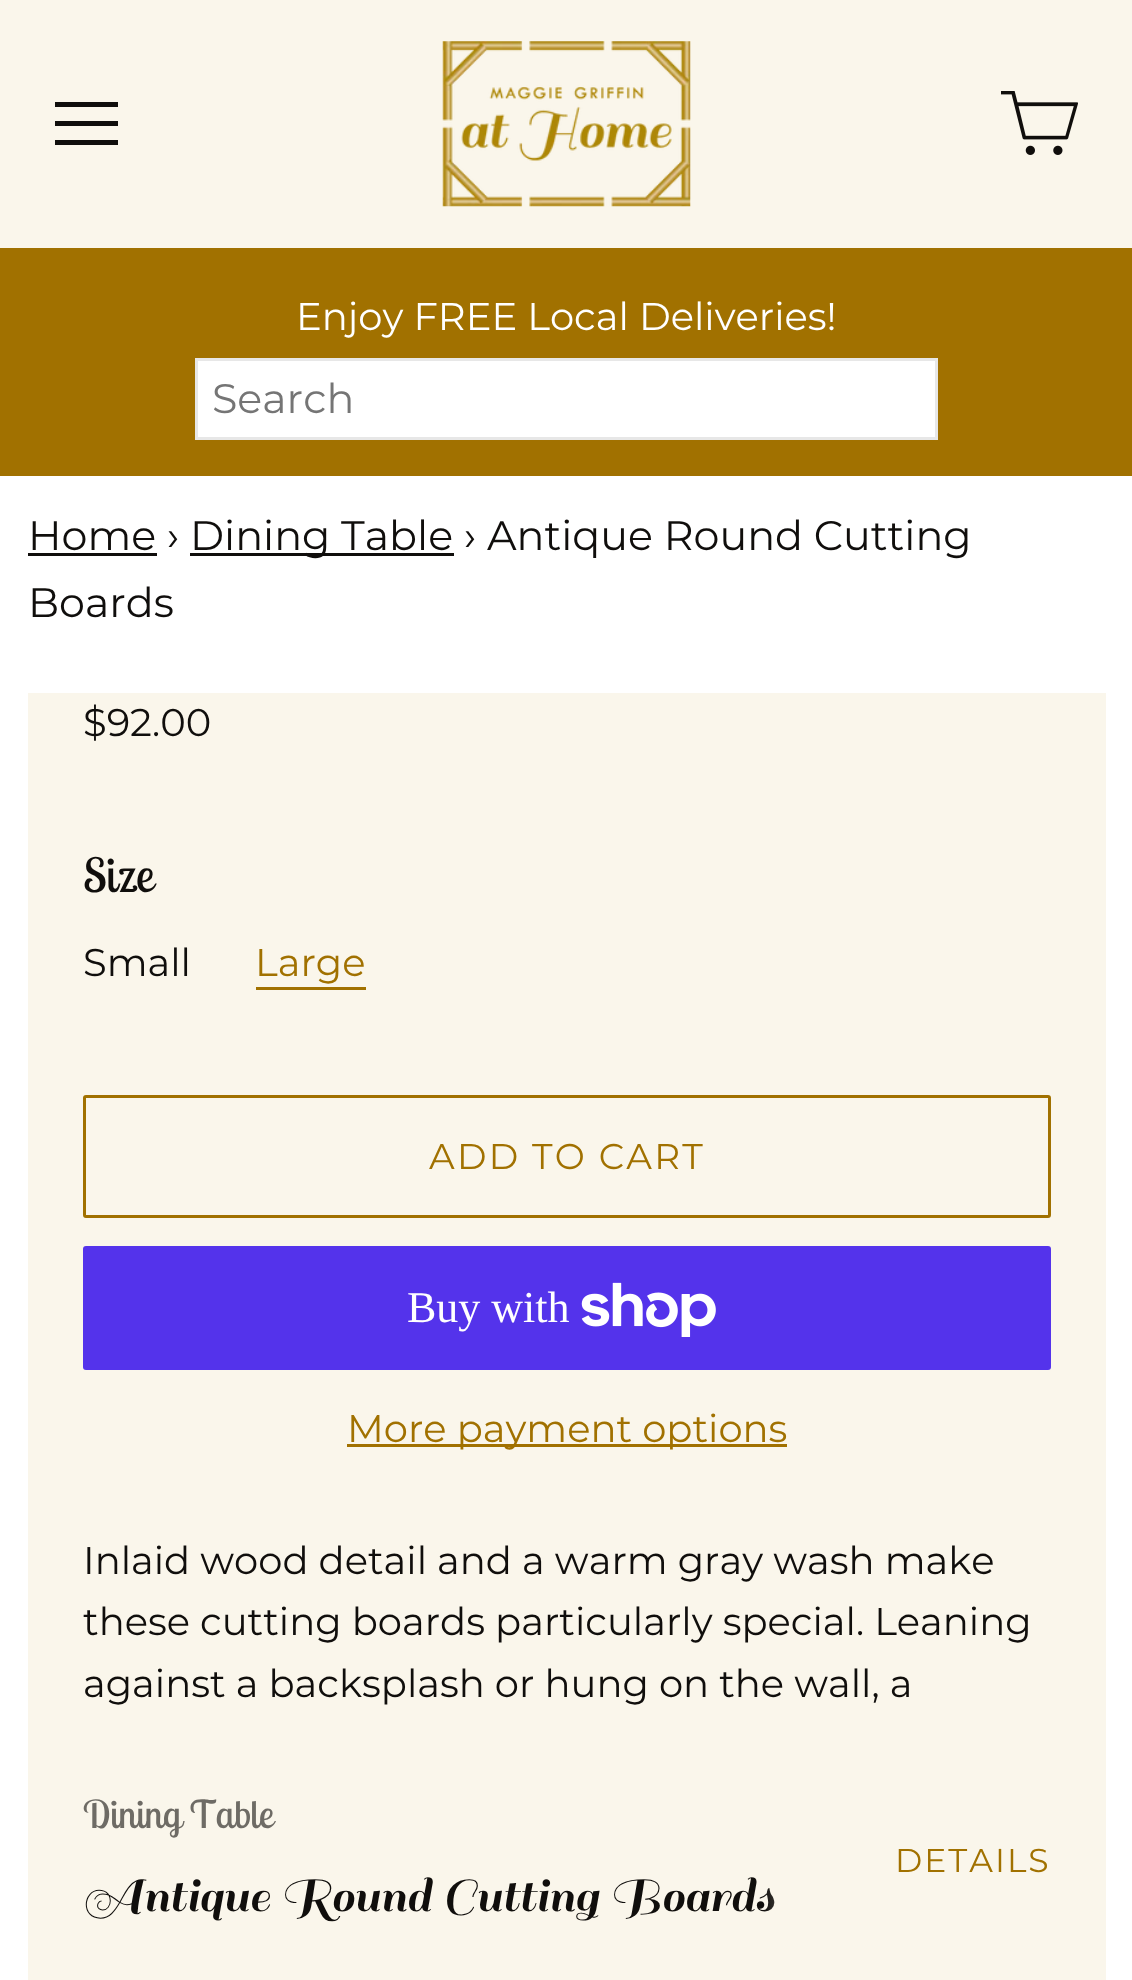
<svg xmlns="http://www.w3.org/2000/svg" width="1132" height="1980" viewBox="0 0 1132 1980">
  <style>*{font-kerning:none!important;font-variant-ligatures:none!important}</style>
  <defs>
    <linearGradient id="g1" gradientUnits="userSpaceOnUse" x1="858" y1="1862" x2="762" y2="1862"><stop offset="0" stop-color="rgb(250,246,235)"/><stop offset="1" stop-color="rgb(250,246,235)" stop-opacity="0"/></linearGradient>
  </defs>
  <rect width="100%" height="100%" fill="rgb(255,255,255)"/>
  <rect x="0" y="0" width="1132" height="248" fill="rgb(250,246,235)"/>
  <rect x="55" y="102" width="63" height="5" fill="rgb(16,14,12)"/>
  <rect x="55" y="121" width="63" height="5" fill="rgb(16,14,12)"/>
  <rect x="55" y="140" width="63" height="5" fill="rgb(16,14,12)"/>
  <image x="442" y="41" width="249" height="166" href="pic1.png"/>
  <image x="1001" y="91" width="77" height="64" href="pic2.png"/>
  <rect x="0" y="248" width="1132" height="228" fill="rgb(161,113,0)"/>
  <text x="296" y="330" font-family="Montserrat" font-size="38.5" fill="rgb(255,255,255)">Enjoy FREE Local Deliveries!</text>
  <rect x="196.5" y="359.5" width="740" height="79" fill="rgb(255,255,255)" stroke="rgb(231,231,231)" stroke-width="3"/>
  <text x="212" y="413" font-family="Montserrat" font-size="41.25" fill="rgb(117,117,117)">Search</text>
  <text x="28" y="550" font-family="Montserrat" font-size="41.25" fill="rgb(16,14,12)">Home ›</text>
  <rect x="28" y="553" width="129" height="3" fill="rgb(16,14,12)"/>
  <rect x="190" y="553" width="264" height="3" fill="rgb(16,14,12)"/>
  <g font-family="Montserrat" font-size="41.25" fill="rgb(16,14,12)">
    <text x="190" y="550">Dining Table › Antique Round Cutting</text>
    <text x="28" y="617">Boards</text>
  </g>
  <rect x="28" y="693" width="1078" height="1287" fill="rgb(250,246,235)"/>
  <text x="83" y="736" font-family="Montserrat" font-size="38.5" fill="rgb(16,14,12)">$92.00</text>
  <text x="83" y="892" font-family="Lobster Two" font-size="47" fill="rgb(16,14,12)">Size</text>
  <text x="83" y="976" font-family="Montserrat" font-size="38.5" fill="rgb(16,14,12)">Small</text>
  <text x="255" y="976" font-family="Montserrat" font-size="38.5" fill="rgb(161,113,0)">Large</text>
  <rect x="256" y="987" width="110" height="3" fill="rgb(161,113,0)"/>
  <rect x="84.5" y="1096.5" width="965" height="120" rx="1.5" fill="none" stroke="rgb(161,113,0)" stroke-width="3"/>
  <text x="429" y="1169" font-family="Montserrat" font-size="35.75" letter-spacing="2.25" fill="rgb(161,113,0)">ADD TO CART</text>
  <rect x="83" y="1246" width="968" height="124" rx="3" fill="rgb(84,51,235)"/>
  <text x="407" y="1322" font-family="Liberation Serif" font-size="44" fill="rgb(255,255,255)">Buy with</text>
  <image x="581" y="1282" width="135" height="55" href="pic3.png"/>
  <rect x="347" y="1444" width="440" height="3" fill="rgb(161,113,0)"/>
  <text x="347" y="1442" font-family="Montserrat" font-size="38.5" fill="rgb(161,113,0)">More payment options</text>
  <g font-family="Montserrat" font-size="38.5" fill="rgb(16,14,12)">
    <text>
      <tspan x="83" y="1574">Inlaid wood detail and a warm gray wash make</tspan>
      <tspan x="83" y="1635">these cutting boards particularly special. Leaning</tspan>
      <tspan x="83" y="1697">against a backsplash or hung on the wall, a</tspan>
    </text>
  </g>
  <text x="83" y="1828" font-family="Lobster Two" font-size="38.5" fill="rgb(110,107,101)">Dining Table</text>
  <text x="83" y="1911" font-family="Sail" font-size="52.25" fill="rgb(16,14,12)">Antique Round Cutting Boards</text>
  <text x="895" y="1872" font-family="Montserrat" font-size="33" letter-spacing="2" fill="rgb(161,113,0)">DETAILS</text>
  <rect x="764" y="1888" width="10" height="24" fill="url(#g1)"/>
</svg>
